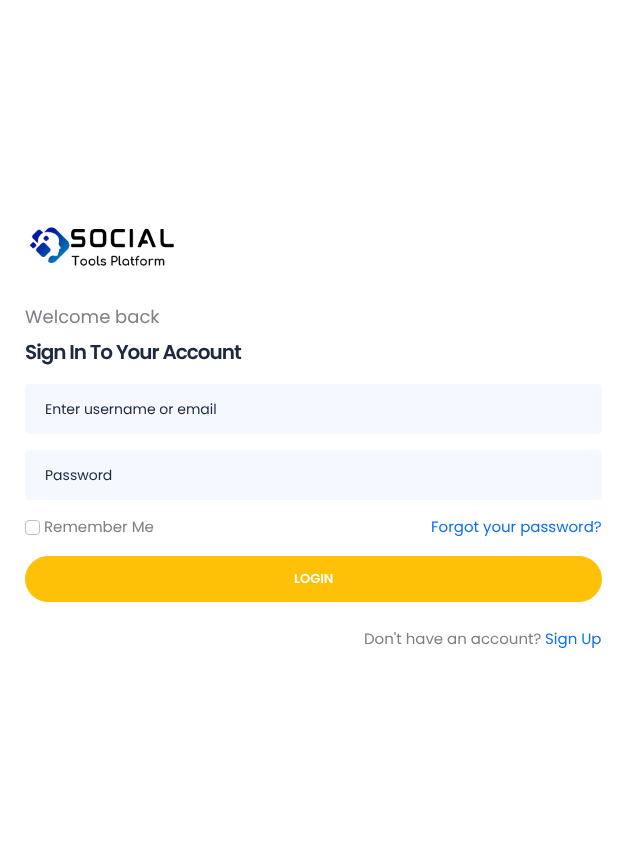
<svg xmlns="http://www.w3.org/2000/svg" width="627" height="845" viewBox="0 0 627 845">
  <rect width="100%" height="100%" fill="rgb(255,255,255)"/>
  <image x="29" y="227" width="145" height="39" href="pic1.png"/>
  <text x="25" y="323" font-family="Poppins" font-size="18" fill="rgb(124,128,135)">Welcome back</text>
  <text x="25" y="359" font-family="Poppins" font-size="20" font-weight="600" letter-spacing="-1" fill="rgb(29,41,63)">Sign In To Your Account</text>
  <rect x="25" y="384" width="577" height="50" rx="4" fill="rgb(245,249,255)"/>
  <text x="45" y="414" font-family="Poppins" font-size="14" fill="rgb(29,41,63)">Enter username or email</text>
  <rect x="25" y="450" width="577" height="50" rx="4" fill="rgb(245,249,255)"/>
  <text x="45" y="480" font-family="Poppins" font-size="14" fill="rgb(29,41,63)">Password</text>
  <rect x="25.5" y="520.5" width="14" height="14" rx="3.5" fill="none" stroke="rgb(191,191,191)"/>
  <text x="44" y="532" font-family="Poppins" font-size="15" fill="rgb(124,128,135)">Remember Me</text>
  <text x="431" y="532" font-family="Poppins" font-size="15" fill="rgb(13,110,253)">Forgot your password?</text>
  <rect x="25.5" y="556.5" width="576" height="45" rx="22.5" fill="rgb(255,193,7)" stroke="rgb(255,193,7)"/>
  <text x="294" y="583" font-family="Poppins" font-size="13" font-weight="600" fill="rgb(255,255,255)">LOGIN</text>
  <text x="364" y="644" font-family="Poppins" font-size="15" fill="rgb(124,128,135)">Don't have an account?</text>
  <text x="545" y="644" font-family="Poppins" font-size="15" fill="rgb(13,110,253)">Sign Up</text>
</svg>
